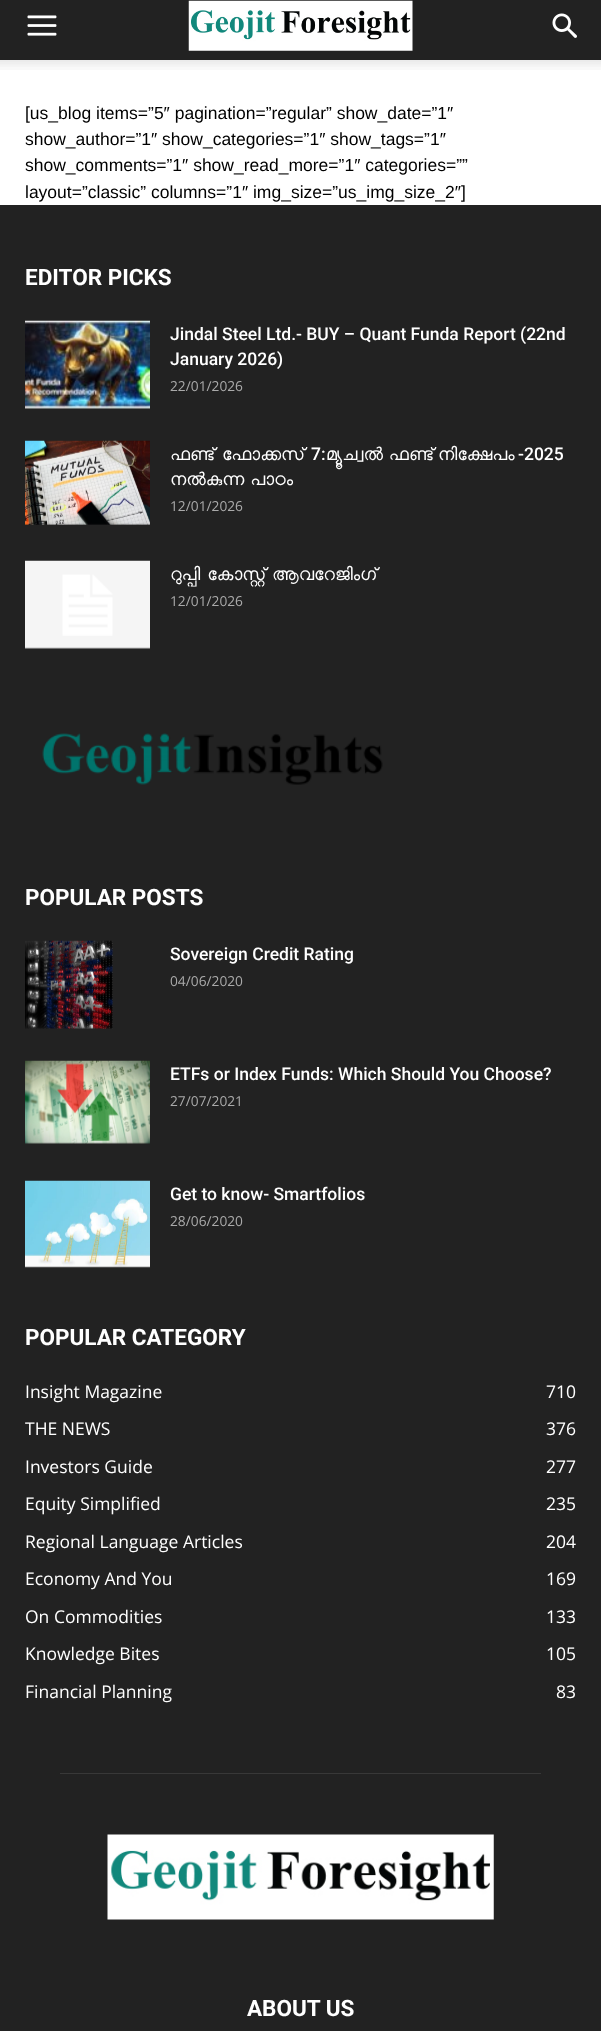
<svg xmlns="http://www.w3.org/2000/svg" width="601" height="2031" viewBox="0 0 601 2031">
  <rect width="100%" height="100%" fill="rgb(255,255,255)"/>
  <rect x="0" y="0" width="601" height="60" fill="rgb(34,34,34)"/>
  <image x="27" y="15" width="30" height="21" href="pic1.png"/>
  <image x="188" y="0" width="225" height="51" href="pic2.png"/>
  <image x="552" y="13" width="25" height="25" href="pic3.png"/>
  <image x="0" y="60" width="601" height="10" href="pic4.png"/>
  <g font-family="Liberation Sans" font-size="17.5" fill="rgb(0,0,0)">
    <text>
      <tspan x="25" y="119">[us_blog items=”5″ pagination=”regular” show_date=”1″</tspan>
      <tspan x="25" y="145">show_author=”1″ show_categories=”1″ show_tags=”1″</tspan>
      <tspan x="25" y="171">show_comments=”1″ show_read_more=”1″ categories=””</tspan>
      <tspan x="25" y="198">layout=”classic” columns=”1″ img_size=”us_img_size_2″]</tspan>
    </text>
  </g>
  <rect x="0" y="205" width="601" height="1826" fill="rgb(34,34,34)"/>
  <text x="25" y="285" font-family="Roboto" font-size="22.5" font-weight="bold" fill="rgb(255,255,255)">EDITOR PICKS</text>
  <image x="25" y="320" width="125" height="89" href="pic5.png"/>
  <g font-family="Roboto" font-size="17.5" font-weight="500" fill="rgb(255,255,255)">
    <text>
      <tspan x="170" y="340">Jindal Steel Ltd.- BUY – Quant Funda Report (22nd</tspan>
      <tspan x="170" y="365">January 2026)</tspan>
    </text>
  </g>
  <text x="170" y="391" font-family="Open Sans" font-size="13.75" fill="rgb(170,170,170)">22/01/2026</text>
  <image x="25" y="440" width="125" height="85" href="pic6.png"/>
  <g font-family="FreeSans" font-size="17.5" fill="rgb(255,255,255)">
    <text x="170" y="460">ഫണ്ട്</text>
    <text x="222" y="460">ഫോക്കസ്</text>
  </g>
  <text x="311" y="460" font-family="Roboto" font-size="17.5" font-weight="500" fill="rgb(255,255,255)">7:</text>
  <g font-family="FreeSans" font-size="17.5" fill="rgb(255,255,255)">
    <text x="326" y="460" word-spacing="-1">മ്യൂച്വല്‍ ഫണ്ട്</text>
    <text x="438" y="460">നിക്ഷേപം</text>
  </g>
  <text x="518" y="460" font-family="Roboto" font-size="17.5" font-weight="500" fill="rgb(255,255,255)">-2025</text>
  <text x="170" y="485" word-spacing="-1" font-family="FreeSans" font-size="17.5" fill="rgb(255,255,255)">നല്‍കുന്ന പാഠം</text>
  <text x="170" y="511" font-family="Open Sans" font-size="13.75" fill="rgb(170,170,170)">12/01/2026</text>
  <image x="25" y="560" width="125" height="89" href="pic7.png"/>
  <text x="170" y="580" font-family="FreeSans" font-size="17.5" fill="rgb(255,255,255)">റുപ്പി കോസ്റ്റ്</text>
  <text x="272" y="580" font-family="FreeSans" font-size="17.5" fill="rgb(255,255,255)">ആവറേജിംഗ്</text>
  <text x="170" y="606" font-family="Open Sans" font-size="13.75" fill="rgb(170,170,170)">12/01/2026</text>
  <image x="42" y="733" width="341" height="52" href="pic8.png"/>
  <text x="25" y="905" font-family="Roboto" font-size="22.5" font-weight="bold" fill="rgb(255,255,255)">POPULAR POSTS</text>
  <image x="25" y="940" width="88" height="89" href="pic9.png"/>
  <text x="170" y="960" font-family="Roboto" font-size="17.5" font-weight="500" fill="rgb(255,255,255)">Sovereign Credit Rating</text>
  <text x="170" y="986" font-family="Open Sans" font-size="13.75" fill="rgb(170,170,170)">04/06/2020</text>
  <image x="25" y="1060" width="125" height="84" href="pic10.png"/>
  <text x="170" y="1080" font-family="Roboto" font-size="17.5" font-weight="500" fill="rgb(255,255,255)">ETFs or Index Funds: Which Should You Choose?</text>
  <text x="170" y="1106" font-family="Open Sans" font-size="13.75" fill="rgb(170,170,170)">27/07/2021</text>
  <image x="25" y="1180" width="125" height="88" href="pic11.png"/>
  <text x="170" y="1200" font-family="Roboto" font-size="17.5" font-weight="500" fill="rgb(255,255,255)">Get to know- Smartfolios</text>
  <text x="170" y="1226" font-family="Open Sans" font-size="13.75" fill="rgb(170,170,170)">28/06/2020</text>
  <text x="25" y="1345" font-family="Roboto" font-size="22.5" font-weight="bold" fill="rgb(255,255,255)">POPULAR CATEGORY</text>
  <g font-family="Open Sans" font-size="17.5" fill="rgb(255,255,255)">
    <text x="25" y="1398">Insight Magazine</text>
    <text x="546" y="1398">710</text>
    <text x="25" y="1435">THE NEWS</text>
    <text x="546" y="1435">376</text>
    <text x="25" y="1473">Investors Guide</text>
    <text x="546" y="1473">277</text>
    <text x="25" y="1510">Equity Simplified</text>
    <text x="546" y="1510">235</text>
    <text x="25" y="1548">Regional Language Articles</text>
    <text x="546" y="1548">204</text>
    <text x="25" y="1585">Economy And You</text>
    <text x="546" y="1585">169</text>
    <text x="25" y="1623">On Commodities</text>
    <text x="546" y="1623">133</text>
    <text x="25" y="1660">Knowledge Bites</text>
    <text x="546" y="1660">105</text>
    <text x="25" y="1698">Financial Planning</text>
    <text x="556" y="1698">83</text>
  </g>
  <rect x="60" y="1773" width="481" height="1" fill="rgb(56,56,56)"/>
  <image x="107" y="1834" width="387" height="86" href="pic12.png"/>
  <text x="247" y="2016" font-family="Roboto" font-size="22.5" font-weight="bold" fill="rgb(255,255,255)">ABOUT US</text>
</svg>
